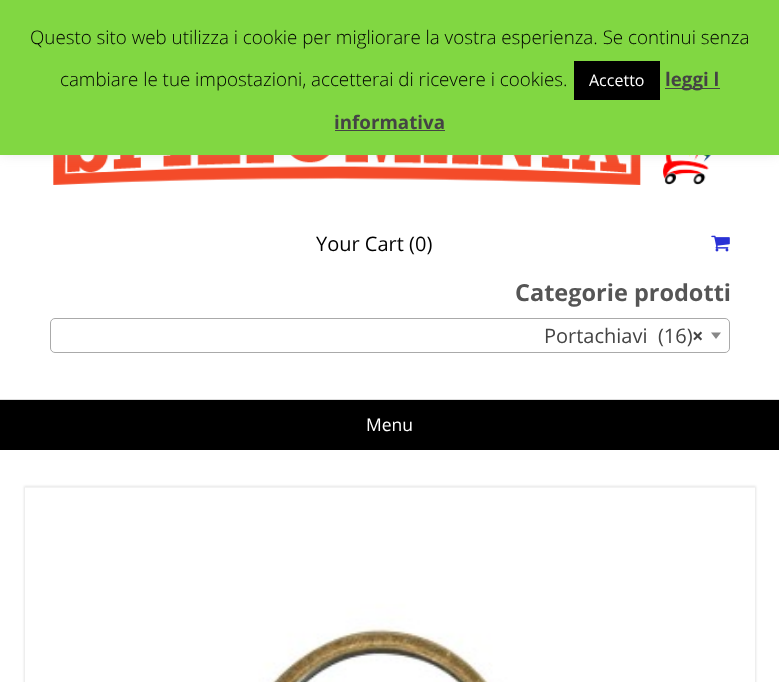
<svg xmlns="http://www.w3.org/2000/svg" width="779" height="682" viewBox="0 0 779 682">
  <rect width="100%" height="100%" fill="rgb(255,255,255)"/>
  <image x="53" y="155" width="659" height="30" href="pic1.png"/>
  <rect x="0" y="-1" width="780" height="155" fill="rgba(172,171,171,0.3)" filter="blur(6px)"/>
  <rect x="0" y="0" width="779" height="155" fill="rgb(129,215,66)"/>
  <g font-family="Open Sans" font-size="18.75" font-weight="300" fill="rgb(0,0,0)">
    <text x="30" y="44">Questo sito web utilizza i cookie per migliorare la vostra esperienza. Se continui senza</text>
    <text x="60" y="86">cambiare le tue impostazioni, accetterai di ricevere i cookies.</text>
  </g>
  <rect x="574" y="61" width="86" height="39" fill="rgb(0,0,0)"/>
  <text x="589" y="86" font-family="Open Sans" font-size="16" fill="rgb(255,255,255)">Accetto</text>
  <rect x="665" y="88" width="55" height="1" fill="rgb(68,68,68)"/>
  <g font-family="Open Sans" font-size="18.75" font-weight="bold" fill="rgb(68,68,68)">
    <text x="665" y="86">leggi l</text>
    <text x="334" y="129">informativa</text>
  </g>
  <rect x="335" y="130" width="110" height="1" fill="rgb(68,68,68)"/>
  <rect x="0" y="399" width="779" height="1" fill="rgb(221,221,221)"/>
  <text x="316" y="251" font-family="Open Sans" font-size="20" fill="rgb(0,0,0)">Your Cart (0)</text>
  <image x="711" y="235" width="19" height="17" href="pic2.png"/>
  <text x="515" y="301" font-family="Open Sans" font-size="23.5" font-weight="bold" fill="rgb(85,85,85)">Categorie prodotti</text>
  <rect x="50.5" y="318.5" width="679" height="34" rx="4.5" fill="none" stroke="rgb(170,170,170)"/>
  <text x="544" y="343" font-family="Open Sans" font-size="20" fill="rgb(68,68,68)" xml:space="preserve">Portachiavi  (16)</text>
  <text x="692" y="343" font-family="Open Sans" font-size="20" font-weight="bold" fill="rgb(68,68,68)">×</text>
  <path d="M711 332.5H721L716 339Z" fill="rgb(136,136,136)"/>
  <rect x="0" y="400" width="779" height="50" fill="rgb(0,0,0)"/>
  <text x="366" y="431" font-family="Open Sans" font-size="17.5" fill="rgb(255,255,255)">Menu</text>
  <rect x="24" y="486" width="732" height="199" fill="rgba(0,0,0,0.1)" filter="blur(1px)"/>
  <image x="25" y="487" width="730" height="195" href="pic3.png"/>
</svg>
